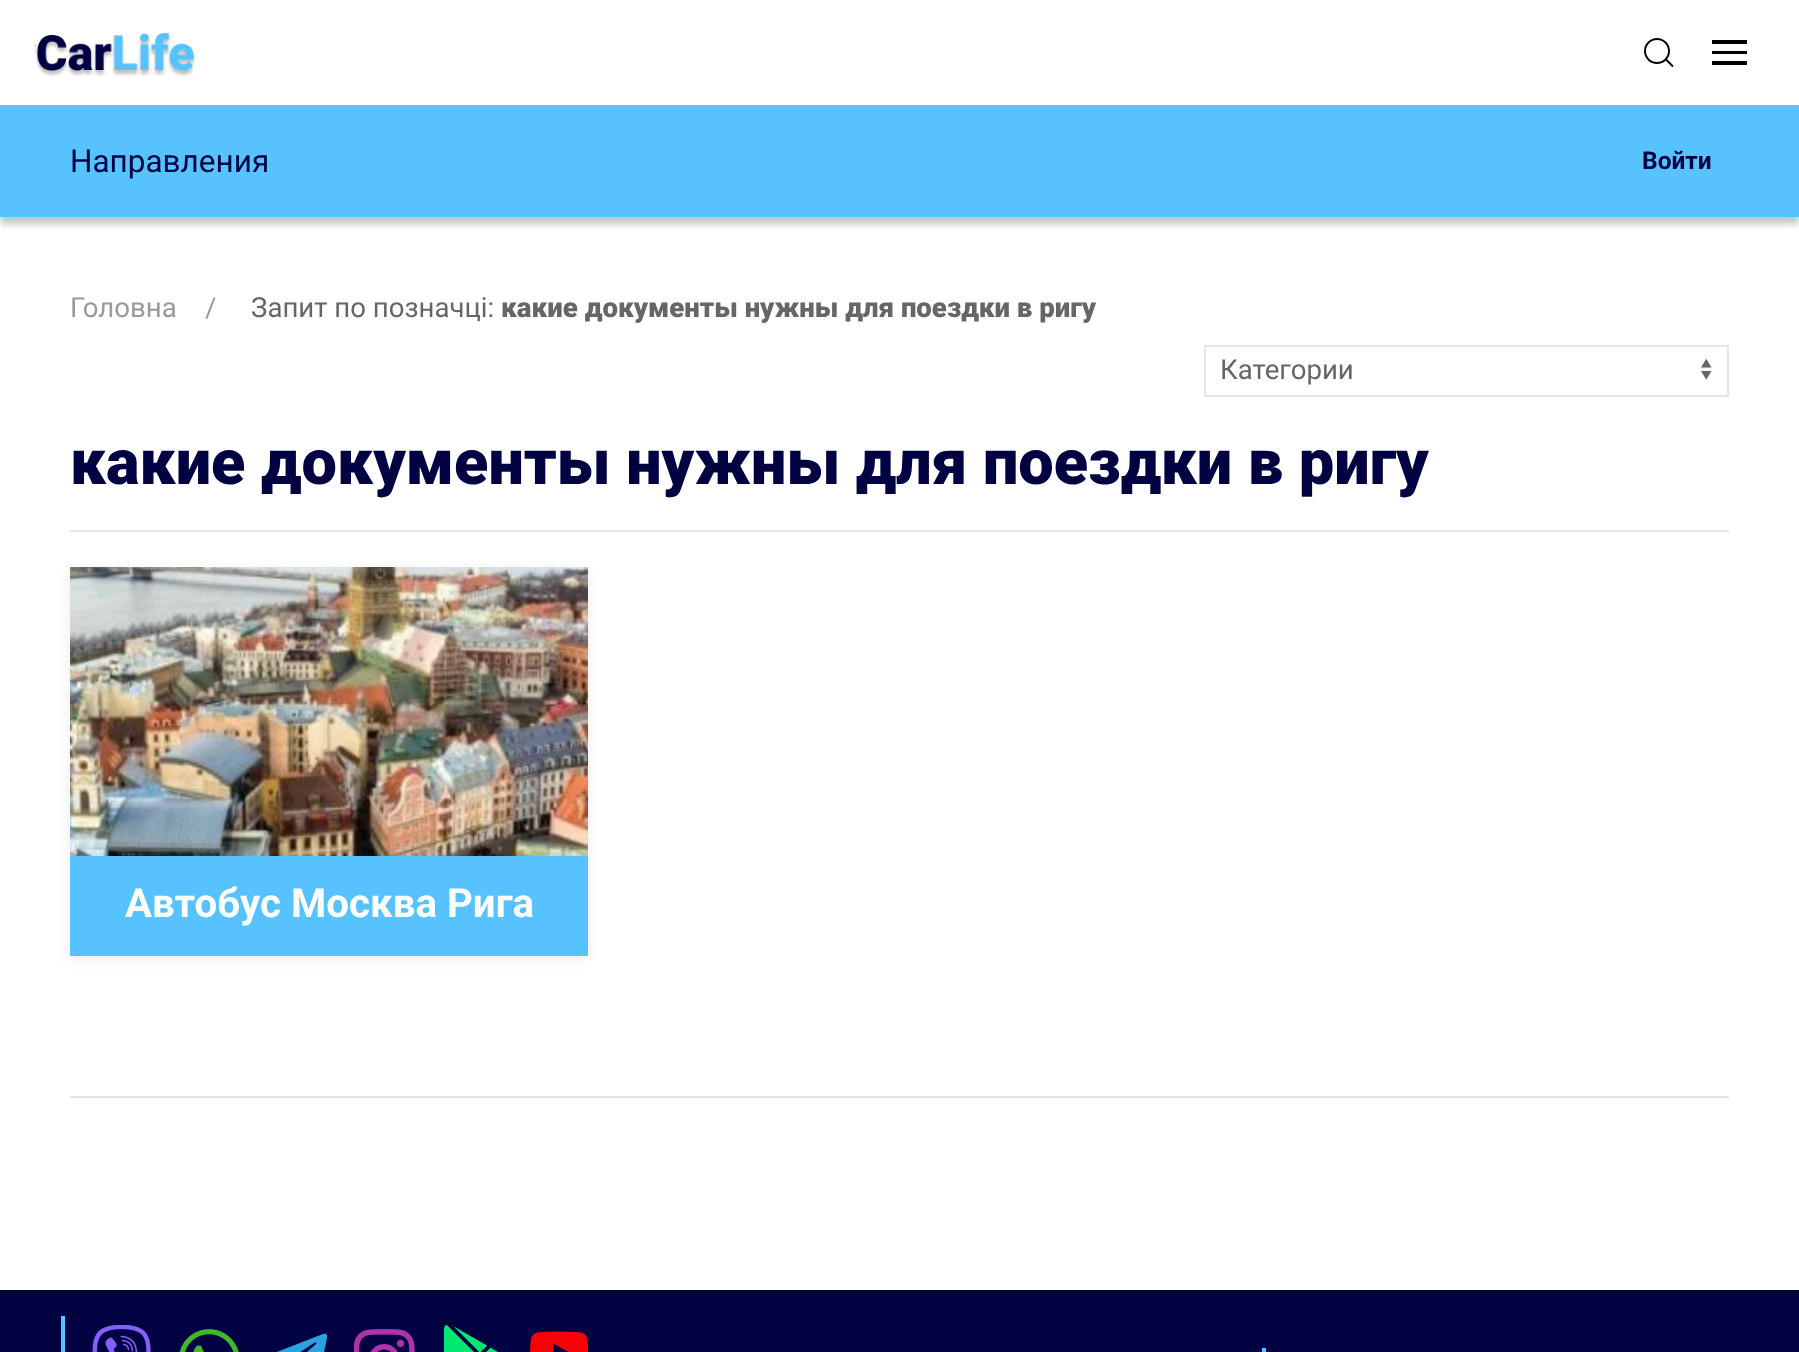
<svg xmlns="http://www.w3.org/2000/svg" width="1799" height="1352" viewBox="0 0 1799 1352">
  <defs>
    <clipPath id="clip1"><rect x="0" y="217" width="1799" height="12"/></clipPath>
    <clipPath id="clip2"><rect x="266" y="1325" width="61" height="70"/></clipPath>
  </defs>
  <rect width="100%" height="100%" fill="rgb(255,255,255)"/>
  <g clip-path="url(#clip1)">
    <rect x="0" y="7" width="1799" height="217" fill="rgba(0,25,49,0.25)" filter="blur(3.5px)"/>
  </g>
  <image x="35" y="33" width="161" height="44" href="pic1.png"/>
  <circle cx="1657" cy="51" r="12" fill="none" stroke="rgb(0,0,0)" stroke-width="1.9"/>
  <path d="M1666 59.5L1673 66.5Z" fill="none" stroke="rgb(0,0,0)" stroke-width="1.9"/>
  <rect x="1712" y="51" width="35" height="3" fill="rgb(0,0,0)"/>
  <rect x="1712" y="40" width="35" height="4" fill="rgb(0,0,0)"/>
  <rect x="1712" y="61" width="35" height="4" fill="rgb(0,0,0)"/>
  <rect x="0" y="105" width="1799" height="112" fill="rgb(86,195,254)"/>
  <text x="70" y="172" font-family="Roboto" font-size="31.5" fill="rgb(0,2,66)">Направления</text>
  <text x="1642" y="169" font-family="Roboto" font-size="24.5" font-weight="bold" fill="rgb(0,2,66)">Войти</text>
  <g font-family="Roboto" font-size="27.6" fill="rgb(153,153,153)">
    <text x="70" y="317">Головна</text>
    <text x="205" y="317">/</text>
  </g>
  <text x="251" y="317" font-family="Roboto" font-size="27.6" fill="rgb(102,102,102)">Запит по позначці:</text>
  <text x="501" y="317" font-family="Roboto" font-size="27.6" font-weight="900" fill="rgb(102,102,102)">какие документы нужны для поездки в ригу</text>
  <image x="1701" y="358" width="11" height="22" href="pic2.png"/>
  <rect x="1205" y="346" width="523" height="50" fill="none" stroke="rgb(229,229,229)" stroke-width="2"/>
  <text x="1220" y="379" font-family="Roboto" font-size="27.6" fill="rgb(102,102,102)">Категории</text>
  <text x="70" y="484" font-family="Roboto" font-size="63" font-weight="900" fill="rgb(0,2,66)">какие документы нужны для поездки в ригу</text>
  <rect x="70" y="530" width="1659" height="2" fill="rgb(229,229,229)"/>
  <rect x="70" y="571" width="518" height="388" fill="rgba(0,0,0,0.08)" filter="blur(7px)"/>
  <image x="70" y="567" width="518" height="289" href="pic3.png"/>
  <rect x="70" y="856" width="518" height="100" fill="rgb(86,195,254)"/>
  <text x="125" y="917" font-family="Roboto" font-size="40.25" font-weight="bold" fill="rgb(255,255,255)">Автобус Москва Рига</text>
  <rect x="70" y="1096" width="1659" height="2" fill="rgb(229,229,229)"/>
  <rect x="0" y="1290" width="1799" height="62" fill="rgb(0,2,66)"/>
  <rect x="61" y="1316" width="4" height="36" fill="rgb(86,195,254)"/>
  <image x="92" y="1325" width="59" height="27" href="pic4.png"/>
  <image x="179" y="1329" width="60" height="23" href="pic5.png"/>
  <g clip-path="url(#clip2)">
    <path d="M327 1338L318 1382C317 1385 315 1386 313 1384L299 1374C297 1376 292 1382 289 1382L290 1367L316 1344C317 1343 316 1342 314 1343L282 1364L268 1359C265 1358 265 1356 269 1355L323 1334C326 1333 328 1334 327 1338Z" fill="rgb(43,163,223)"/>
  </g>
  <image x="354" y="1329" width="61" height="23" href="pic6.png"/>
  <image x="444" y="1325" width="54" height="27" href="pic7.png"/>
  <image x="530" y="1331" width="59" height="21" href="pic8.png"/>
  <rect x="1262" y="1348" width="4" height="4" fill="rgb(86,195,254)"/>
</svg>
